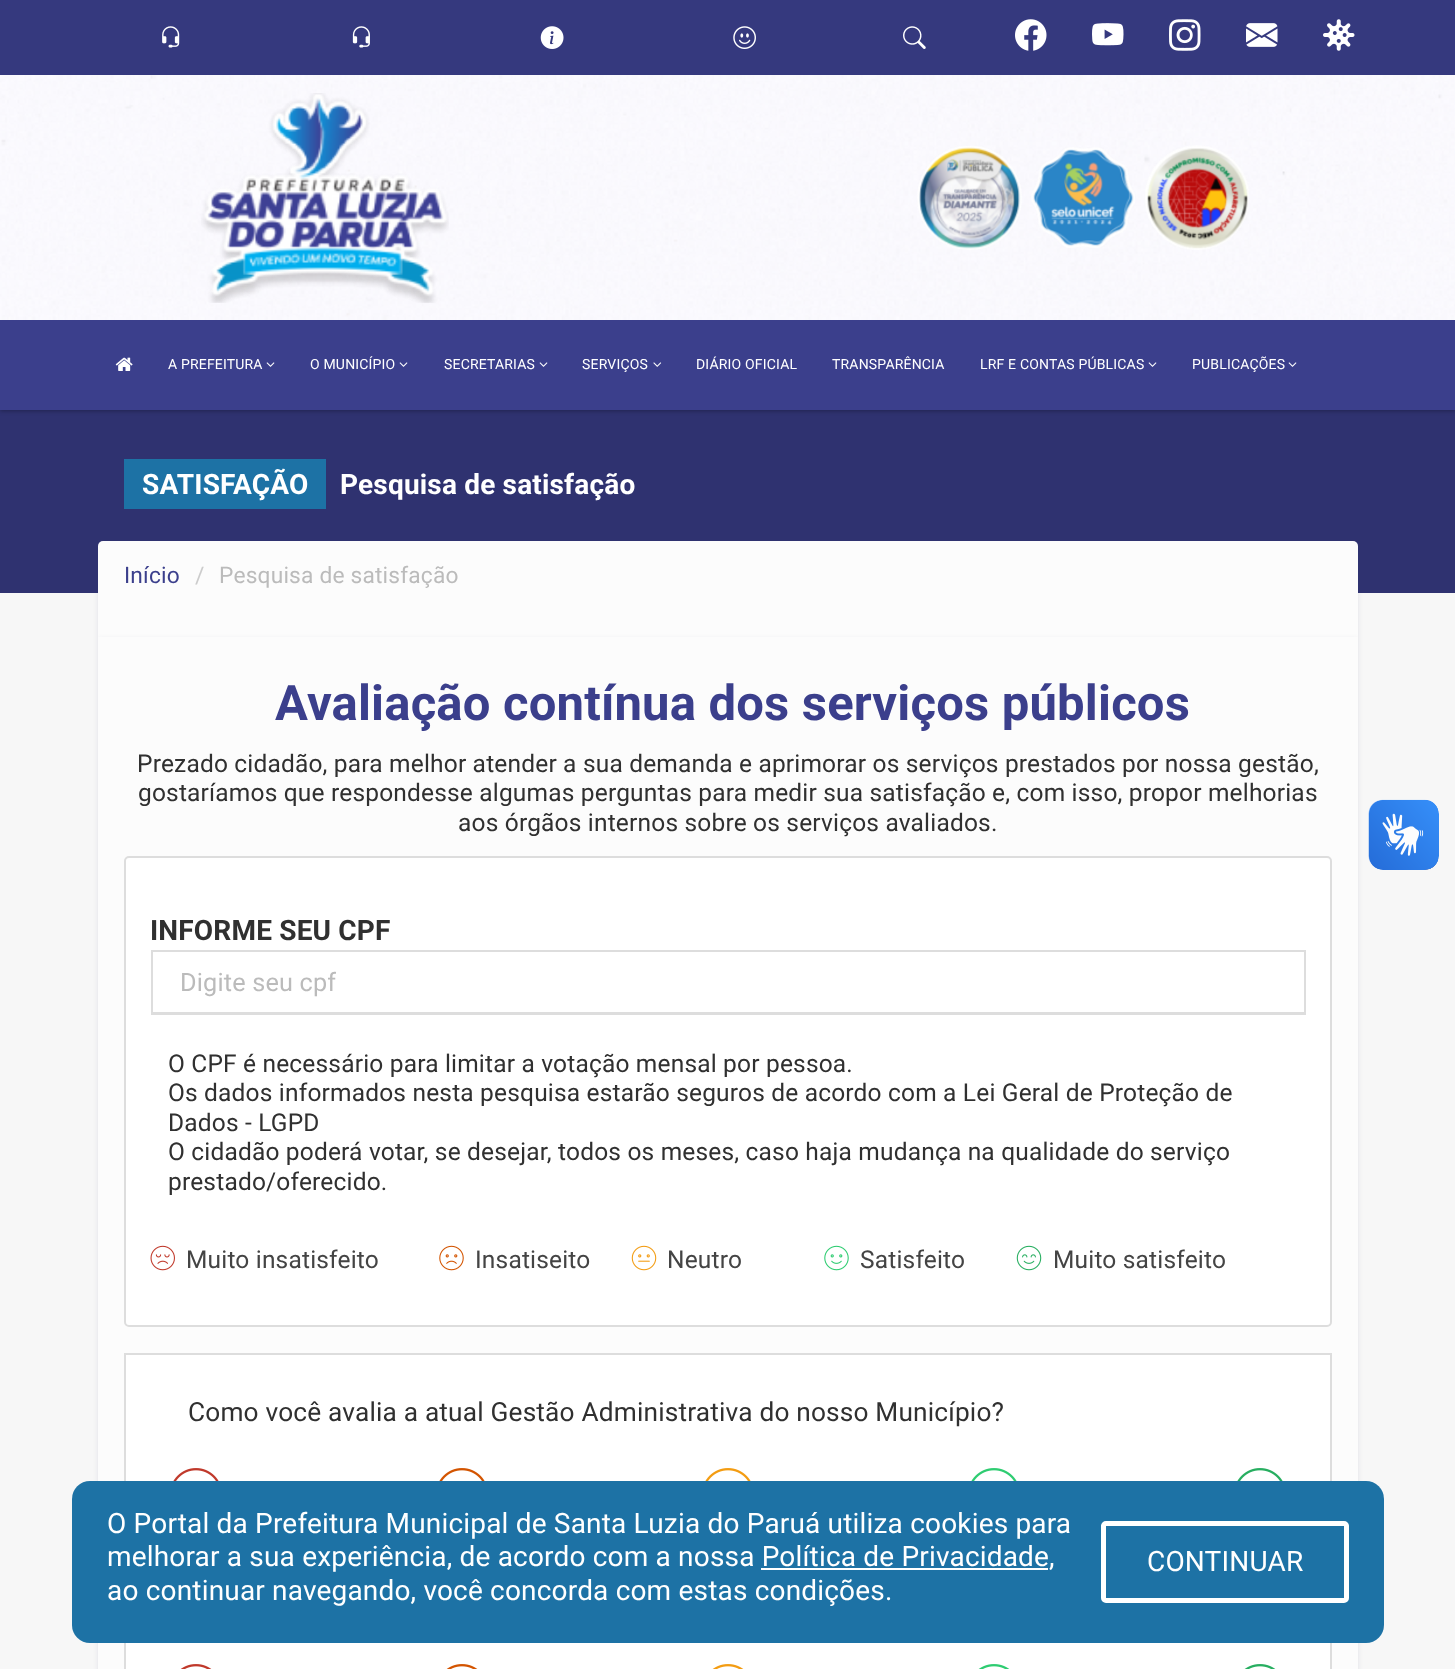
<svg xmlns="http://www.w3.org/2000/svg" width="1455" height="1669" viewBox="0 0 1455 1669">
  <rect width="100%" height="100%" fill="rgb(247,247,247)"/>
  <rect x="98" y="543" width="1260" height="96" fill="rgba(3,0,71,0.09)" filter="blur(2.5px)"/>
  <rect x="0" y="410" width="1455" height="183" fill="rgb(47,50,112)"/>
  <rect x="0" y="2" width="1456" height="409" fill="rgba(0,0,0,0.3)" filter="blur(2px)"/>
  <image x="0" y="75" width="1455" height="245" href="pic1.png"/>
  <rect x="0" y="0" width="1455" height="75" fill="rgb(53,57,126)"/>
  <image x="162" y="26" width="18" height="22" href="pic2.png"/>
  <image x="352" y="26" width="18" height="22" href="pic3.png"/>
  <image x="540" y="26" width="24" height="23" href="pic4.png"/>
  <image x="733" y="26" width="23" height="23" href="pic5.png"/>
  <image x="903" y="26" width="23" height="23" href="pic6.png"/>
  <image x="1015" y="19" width="32" height="32" href="pic7.png"/>
  <image x="1092" y="23" width="32" height="23" href="pic8.png"/>
  <image x="1169" y="19" width="32" height="32" href="pic9.png"/>
  <image x="1246" y="23" width="32" height="24" href="pic10.png"/>
  <image x="1323" y="19" width="32" height="32" href="pic11.png"/>
  <image x="201" y="93" width="248" height="210" href="pic12.png"/>
  <image x="917" y="146" width="105" height="104" href="pic13.png"/>
  <image x="1031" y="147" width="104" height="101" href="pic14.png"/>
  <image x="1145" y="145" width="104" height="105" href="pic15.png"/>
  <rect x="0" y="320" width="1455" height="90" fill="rgb(59,63,140)"/>
  <image x="115" y="357" width="18" height="14" href="pic16.png"/>
  <text x="168" y="369" font-family="Roboto" font-size="14" letter-spacing="0.18" fill="rgb(255,255,255)">A PREFEITURA</text>
  <image x="266" y="362" width="9" height="5" href="pic17.png"/>
  <text x="310" y="369" font-family="Roboto" font-size="14" letter-spacing="0.18" fill="rgb(255,255,255)">O MUNICÍPIO</text>
  <image x="399" y="362" width="9" height="5" href="pic17.png"/>
  <text x="444" y="369" font-family="Roboto" font-size="14" letter-spacing="0.18" fill="rgb(255,255,255)">SECRETARIAS</text>
  <image x="539" y="362" width="9" height="5" href="pic17.png"/>
  <text x="582" y="369" font-family="Roboto" font-size="14" letter-spacing="0.18" fill="rgb(255,255,255)">SERVIÇOS</text>
  <image x="653" y="362" width="9" height="5" href="pic18.png"/>
  <g font-family="Roboto" font-size="14" letter-spacing="0.18" fill="rgb(255,255,255)">
    <text x="696" y="369">DIÁRIO OFICIAL</text>
    <text x="832" y="369">TRANSPARÊNCIA</text>
    <text x="980" y="369">LRF E CONTAS PÚBLICAS</text>
  </g>
  <image x="1148" y="362" width="9" height="5" href="pic17.png"/>
  <text x="1192" y="369" font-family="Roboto" font-size="14" letter-spacing="0.18" fill="rgb(255,255,255)">PUBLICAÇÕES</text>
  <image x="1288" y="362" width="9" height="5" href="pic17.png"/>
  <rect x="124" y="459" width="202" height="50" fill="rgb(29,114,165)"/>
  <g font-family="Roboto" font-size="28" font-weight="bold" letter-spacing="0.18" fill="rgb(255,255,255)">
    <text x="142" y="494">SATISFAÇÃO</text>
    <text x="340" y="494">Pesquisa de satisfação</text>
  </g>
  <rect x="98" y="606" width="1260" height="31" fill="rgb(252,252,252)"/>
  <rect x="98" y="541" width="1260" height="70" rx="5" fill="rgb(252,252,252)"/>
  <text x="124" y="583" font-family="Roboto" font-size="22.75" letter-spacing="0.18" fill="rgb(59,63,140)">Início</text>
  <text x="195" y="583" font-family="Roboto" font-size="22.75" letter-spacing="0.18" fill="rgb(204,204,204)">/</text>
  <text x="219" y="583" font-family="Roboto" font-size="22.75" letter-spacing="0.18" fill="rgb(187,187,187)">Pesquisa de satisfação</text>
  <rect x="98" y="639" width="1260" height="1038" fill="rgba(3,0,71,0.09)" filter="blur(2.5px)"/>
  <rect x="98" y="637" width="1260" height="1032" fill="rgb(252,252,252)"/>
  <text x="275" y="720" font-family="Roboto" font-size="49" font-weight="bold" letter-spacing="0.18" fill="rgb(59,63,140)">Avaliação contínua dos serviços públicos</text>
  <g font-family="Roboto" font-size="24.5" letter-spacing="0.18" fill="rgb(48,48,48)">
    <text x="137" y="772">Prezado cidadão, para melhor atender a sua demanda e aprimorar os serviços prestados por nossa gestão,</text>
    <text x="138" y="801">gostaríamos que respondesse algumas perguntas para medir sua satisfação e, com isso, propor melhorias</text>
    <text x="458" y="831">aos órgãos internos sobre os serviços avaliados.</text>
  </g>
  <rect x="125" y="857" width="1206" height="469" rx="4" fill="rgb(255,255,255)" stroke="rgb(221,221,221)" stroke-width="2"/>
  <text x="150" y="940" font-family="Roboto" font-size="28" font-weight="bold" letter-spacing="0.18" fill="rgb(48,48,48)">INFORME SEU CPF</text>
  <rect x="152" y="1012" width="1152" height="1" fill="rgb(221,221,221)"/>
  <rect x="152" y="951" width="1153" height="63" fill="none" stroke="rgb(221,221,221)" stroke-width="2"/>
  <text x="180" y="991" font-family="Roboto" font-size="25.25" letter-spacing="0.18" fill="rgb(187,187,187)">Digite seu cpf</text>
  <g font-family="Roboto" font-size="24.5" letter-spacing="0.18" fill="rgb(48,48,48)">
    <text>
      <tspan x="168" y="1072">O CPF é necessário para limitar a votação mensal por pessoa.</tspan>
      <tspan x="168" y="1101">Os dados informados nesta pesquisa estarão seguros de acordo com a Lei Geral de Proteção de</tspan>
      <tspan x="168" y="1131">Dados - LGPD</tspan>
      <tspan x="168" y="1160">O cidadão poderá votar, se desejar, todos os meses, caso haja mudança na qualidade do serviço</tspan>
      <tspan x="168" y="1190">prestado/oferecido.</tspan>
    </text>
  </g>
  <image x="150" y="1245" width="25" height="26" href="pic19.png"/>
  <text x="186" y="1268" font-family="Roboto" font-size="24.5" letter-spacing="0.18" fill="rgb(68,68,68)">Muito insatisfeito</text>
  <image x="439" y="1245" width="25" height="26" href="pic20.png"/>
  <text x="475" y="1268" font-family="Roboto" font-size="24.5" letter-spacing="0.18" fill="rgb(68,68,68)">Insatiseito</text>
  <image x="631" y="1245" width="26" height="26" href="pic21.png"/>
  <text x="667" y="1268" font-family="Roboto" font-size="24.5" letter-spacing="0.18" fill="rgb(68,68,68)">Neutro</text>
  <image x="824" y="1245" width="25" height="26" href="pic22.png"/>
  <text x="860" y="1268" font-family="Roboto" font-size="24.5" letter-spacing="0.18" fill="rgb(68,68,68)">Satisfeito</text>
  <image x="1016" y="1245" width="26" height="26" href="pic23.png"/>
  <text x="1053" y="1268" font-family="Roboto" font-size="24.5" letter-spacing="0.18" fill="rgb(68,68,68)">Muito satisfeito</text>
  <rect x="126" y="1355" width="1204" height="126" fill="rgb(255,255,255)"/>
  <rect x="125" y="1354" width="1206" height="196" fill="none" stroke="rgb(221,221,221)" stroke-width="2"/>
  <text x="188" y="1421" font-family="Roboto" font-size="26.25" letter-spacing="0.18" fill="rgb(48,48,48)">Como você avalia a atual Gestão Administrativa do nosso Município?</text>
  <image x="173" y="1468" width="46" height="13" href="pic24.png"/>
  <image x="439" y="1468" width="46" height="13" href="pic25.png"/>
  <image x="705" y="1468" width="46" height="13" href="pic26.png"/>
  <image x="971" y="1468" width="46" height="13" href="pic27.png"/>
  <image x="1237" y="1468" width="46" height="13" href="pic28.png"/>
  <rect x="126" y="1643" width="1204" height="26" fill="rgb(255,255,255)"/>
  <rect x="125" y="1550" width="1206" height="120" fill="none" stroke="rgb(221,221,221)" stroke-width="2"/>
  <image x="180" y="1664" width="32" height="5" href="pic29.png"/>
  <image x="446" y="1664" width="32" height="5" href="pic30.png"/>
  <image x="712" y="1664" width="32" height="5" href="pic31.png"/>
  <image x="978" y="1664" width="32" height="5" href="pic32.png"/>
  <image x="1244" y="1664" width="32" height="5" href="pic33.png"/>
  <image x="1368" y="799" width="71" height="71" href="pic34.png"/>
  <image x="1369" y="800" width="70" height="70" href="pic35.png"/>
  <rect x="72" y="1481" width="1312" height="162" rx="18" fill="rgb(29,114,165)"/>
  <g font-family="Roboto" font-size="28" letter-spacing="0.18" fill="rgb(255,255,255)">
    <text>
      <tspan x="107" y="1533">O Portal da Prefeitura Municipal de Santa Luzia do Paruá utiliza cookies para</tspan>
      <tspan x="107" y="1566">melhorar a sua experiência, de acordo com a nossa Política de Privacidade,</tspan>
    </text>
  </g>
  <rect x="761" y="1568" width="287" height="2" fill="rgb(255,255,255)"/>
  <text x="107" y="1600" font-family="Roboto" font-size="28" letter-spacing="0.18" fill="rgb(255,255,255)">ao continuar navegando, você concorda com estas condições.</text>
  <rect x="1103.5" y="1523.5" width="243" height="77" rx="2.5" fill="none" stroke="rgb(255,255,255)" stroke-width="5"/>
  <text x="1147" y="1571" font-family="Roboto" font-size="28" letter-spacing="0.18" fill="rgb(255,255,255)">CONTINUAR</text>
</svg>
